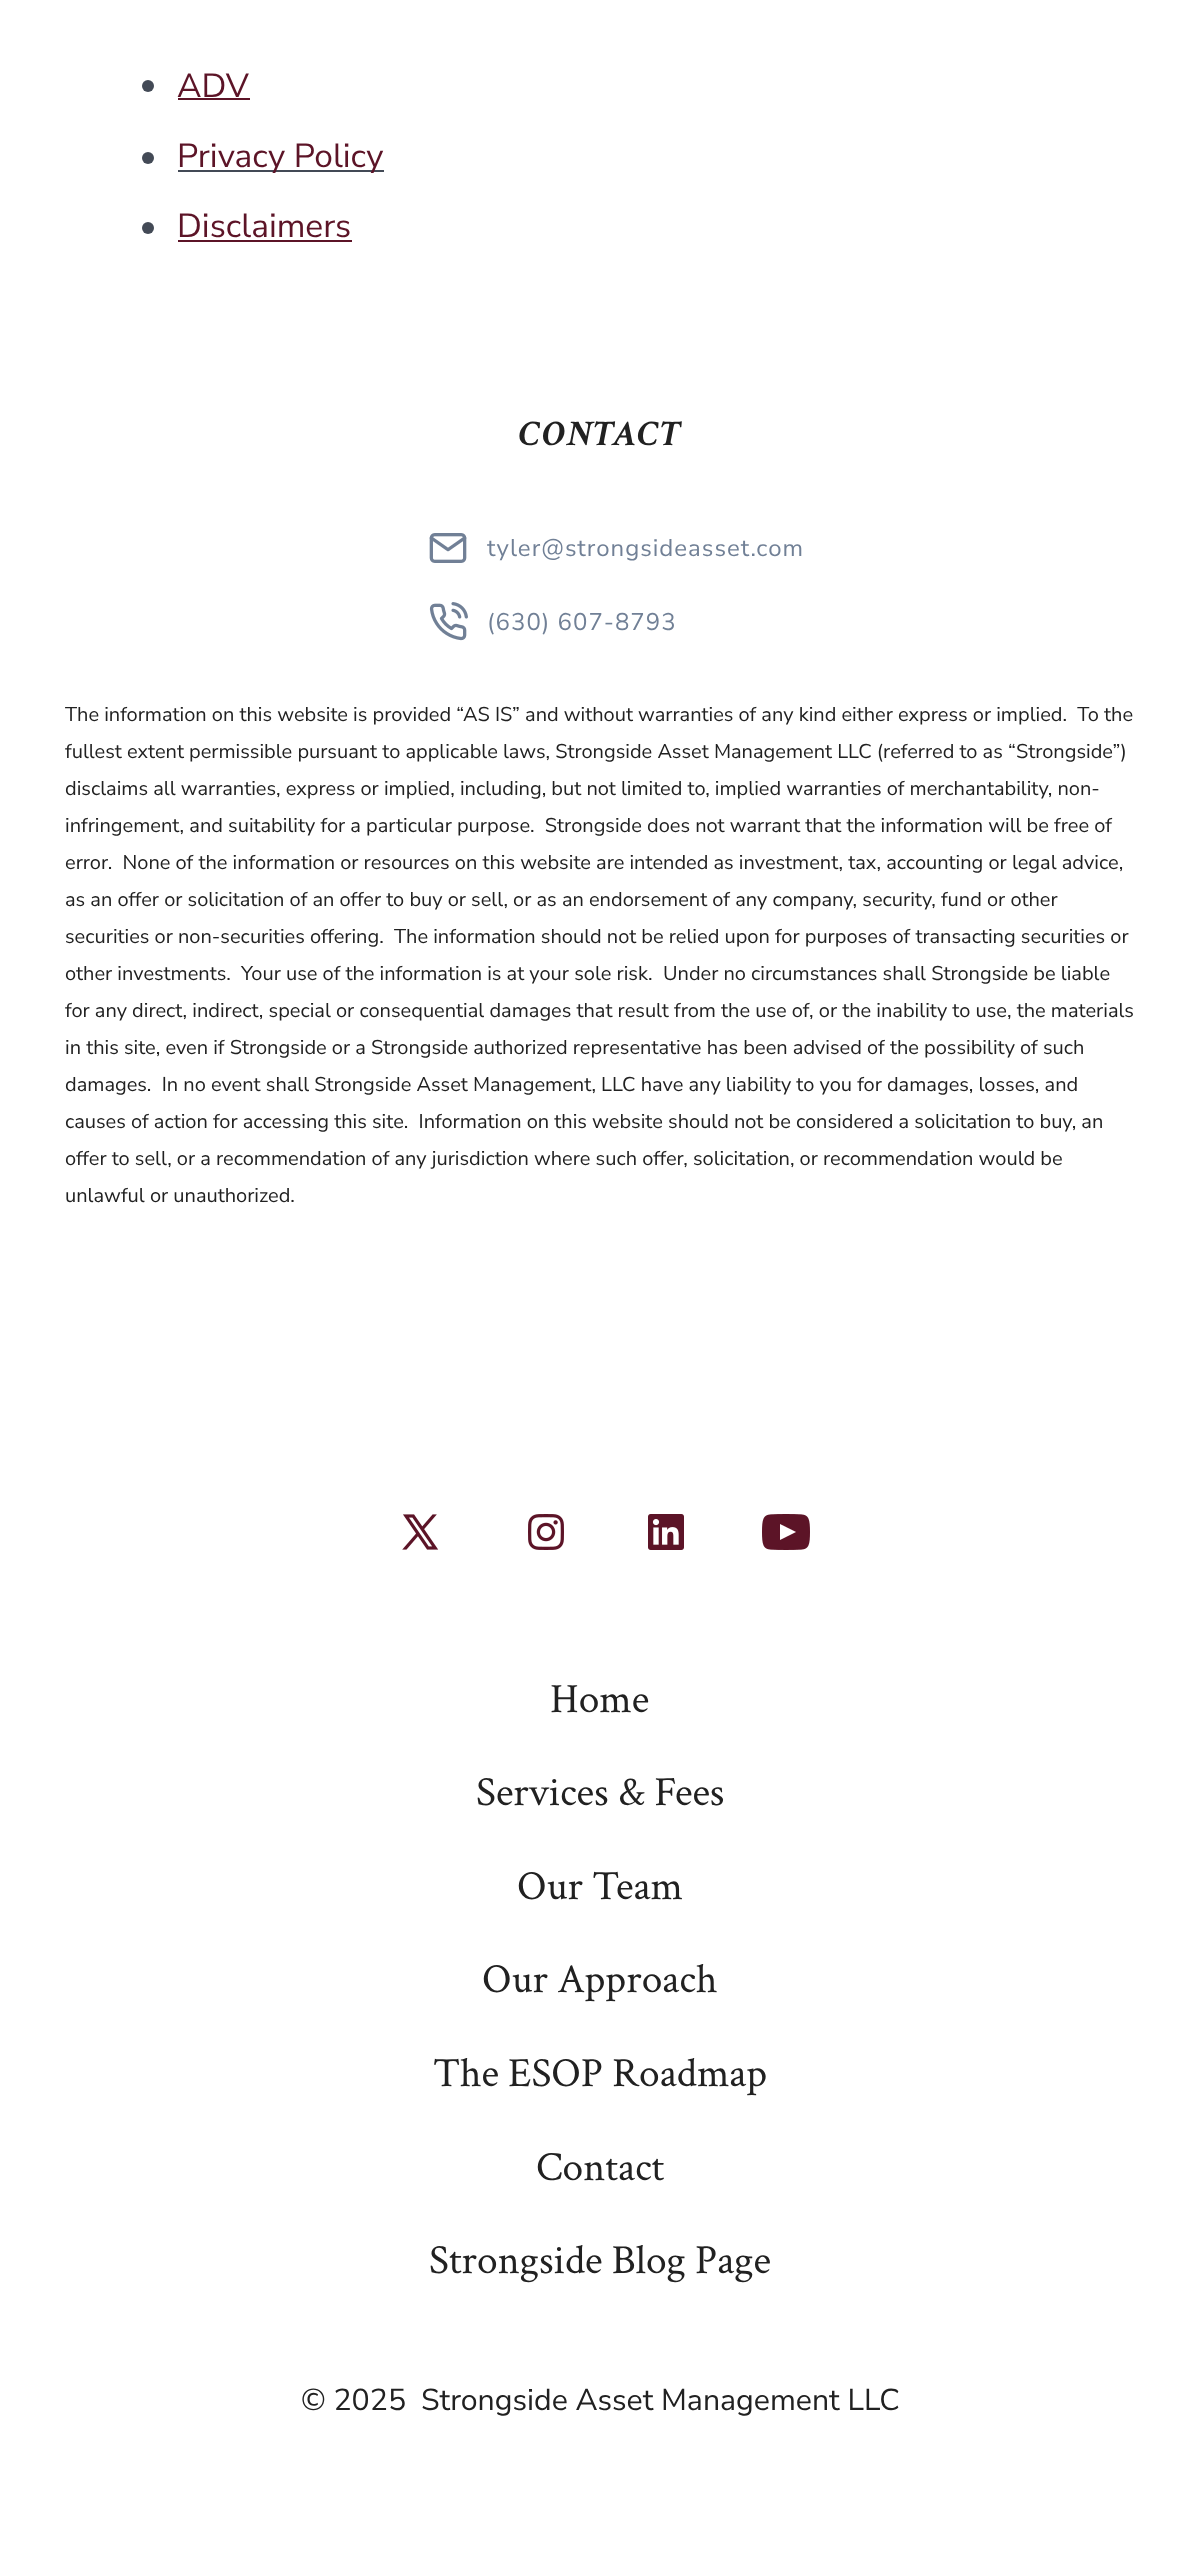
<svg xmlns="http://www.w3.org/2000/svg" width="1199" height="2562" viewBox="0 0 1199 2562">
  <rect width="100%" height="100%" fill="rgb(255,255,255)"/>
  <circle cx="148" cy="86" r="6" fill="rgb(67,74,86)"/>
  <text x="177" y="97" font-family="Nunito Sans" font-size="33.5" fill="rgb(92,20,39)">ADV</text>
  <rect x="178" y="98" width="72" height="2" fill="rgb(92,20,39)"/>
  <circle cx="148" cy="158" r="6" fill="rgb(67,74,86)"/>
  <rect x="178" y="170" width="206" height="2" fill="rgb(67,74,86)"/>
  <text x="177" y="167" font-family="Nunito Sans" font-size="33.5" fill="rgb(92,20,39)">Privacy Policy</text>
  <circle cx="148" cy="228" r="6" fill="rgb(67,74,86)"/>
  <text x="177" y="237" font-family="Nunito Sans" font-size="33.5" fill="rgb(92,20,39)">Disclaimers</text>
  <rect x="178" y="240" width="174" height="2" fill="rgb(92,20,39)"/>
  <text x="519" y="445" font-family="Crimson Text" font-size="36" font-weight="bold" font-style="italic" letter-spacing="2" fill="rgb(33,33,33)">CONTACT</text>
  <image x="429" y="533" width="38" height="30" href="pic1.png"/>
  <text x="487" y="556" font-family="Nunito Sans" font-size="24" letter-spacing="1" fill="rgb(113,128,150)">tyler@strongsideasset.com</text>
  <image x="429" y="602" width="39" height="39" href="pic2.png"/>
  <text x="487" y="630" font-family="Nunito Sans" font-size="24" letter-spacing="1" fill="rgb(113,128,150)">(630) 607-8793</text>
  <g font-family="Nunito Sans" font-size="20" fill="rgb(33,33,33)">
    <text xml:space="preserve"><tspan x="65" y="721">The information on this website is provided “AS IS” and without warranties of any kind either express or implied.  To the</tspan><tspan x="65" y="758">fullest extent permissible pursuant to applicable laws, Strongside Asset Management LLC (referred to as “Strongside”)</tspan><tspan x="65" y="795">disclaims all warranties, express or implied, including, but not limited to, implied warranties of merchantability, non-</tspan><tspan x="65" y="832">infringement, and suitability for a particular purpose.  Strongside does not warrant that the information will be free of</tspan><tspan x="65" y="869">error.  None of the information or resources on this website are intended as investment, tax, accounting or legal advice,</tspan><tspan x="65" y="906">as an offer or solicitation of an offer to buy or sell, or as an endorsement of any company, security, fund or other</tspan><tspan x="65" y="943">securities or non-securities offering.  The information should not be relied upon for purposes of transacting securities or</tspan><tspan x="65" y="980">other investments.  Your use of the information is at your sole risk.  Under no circumstances shall Strongside be liable</tspan><tspan x="65" y="1017">for any direct, indirect, special or consequential damages that result from the use of, or the inability to use, the materials</tspan><tspan x="65" y="1054">in this site, even if Strongside or a Strongside authorized representative has been advised of the possibility of such</tspan><tspan x="65" y="1091">damages.  In no event shall Strongside Asset Management, LLC have any liability to you for damages, losses, and</tspan><tspan x="65" y="1128">causes of action for accessing this site.  Information on this website should not be considered a solicitation to buy, an</tspan><tspan x="65" y="1165">offer to sell, or a recommendation of any jurisdiction where such offer, solicitation, or recommendation would be</tspan><tspan x="65" y="1202">unlawful or unauthorized.</tspan></text>
  </g>
  <image x="402" y="1514" width="37" height="36" href="pic3.png"/>
  <image x="528" y="1514" width="36" height="36" href="pic4.png"/>
  <image x="648" y="1514" width="36" height="36" href="pic5.png"/>
  <image x="762" y="1514" width="48" height="36" href="pic6.png"/>
  <g font-family="Crimson Text" font-size="41.5" fill="rgb(33,33,33)">
    <text x="550" y="1712">Home</text>
    <text x="476" y="1805">Services &amp; Fees</text>
    <text x="517" y="1899">Our Team</text>
    <text x="482" y="1992">Our Approach</text>
    <text x="433" y="2086">The ESOP Roadmap</text>
    <text x="536" y="2180">Contact</text>
    <text x="429" y="2273">Strongside Blog Page</text>
  </g>
  <g font-family="Nunito Sans" font-size="30.25" fill="rgb(33,33,33)">
    <text x="301" y="2410">© 2025</text>
    <text x="421" y="2410">Strongside Asset Management LLC</text>
  </g>
</svg>
